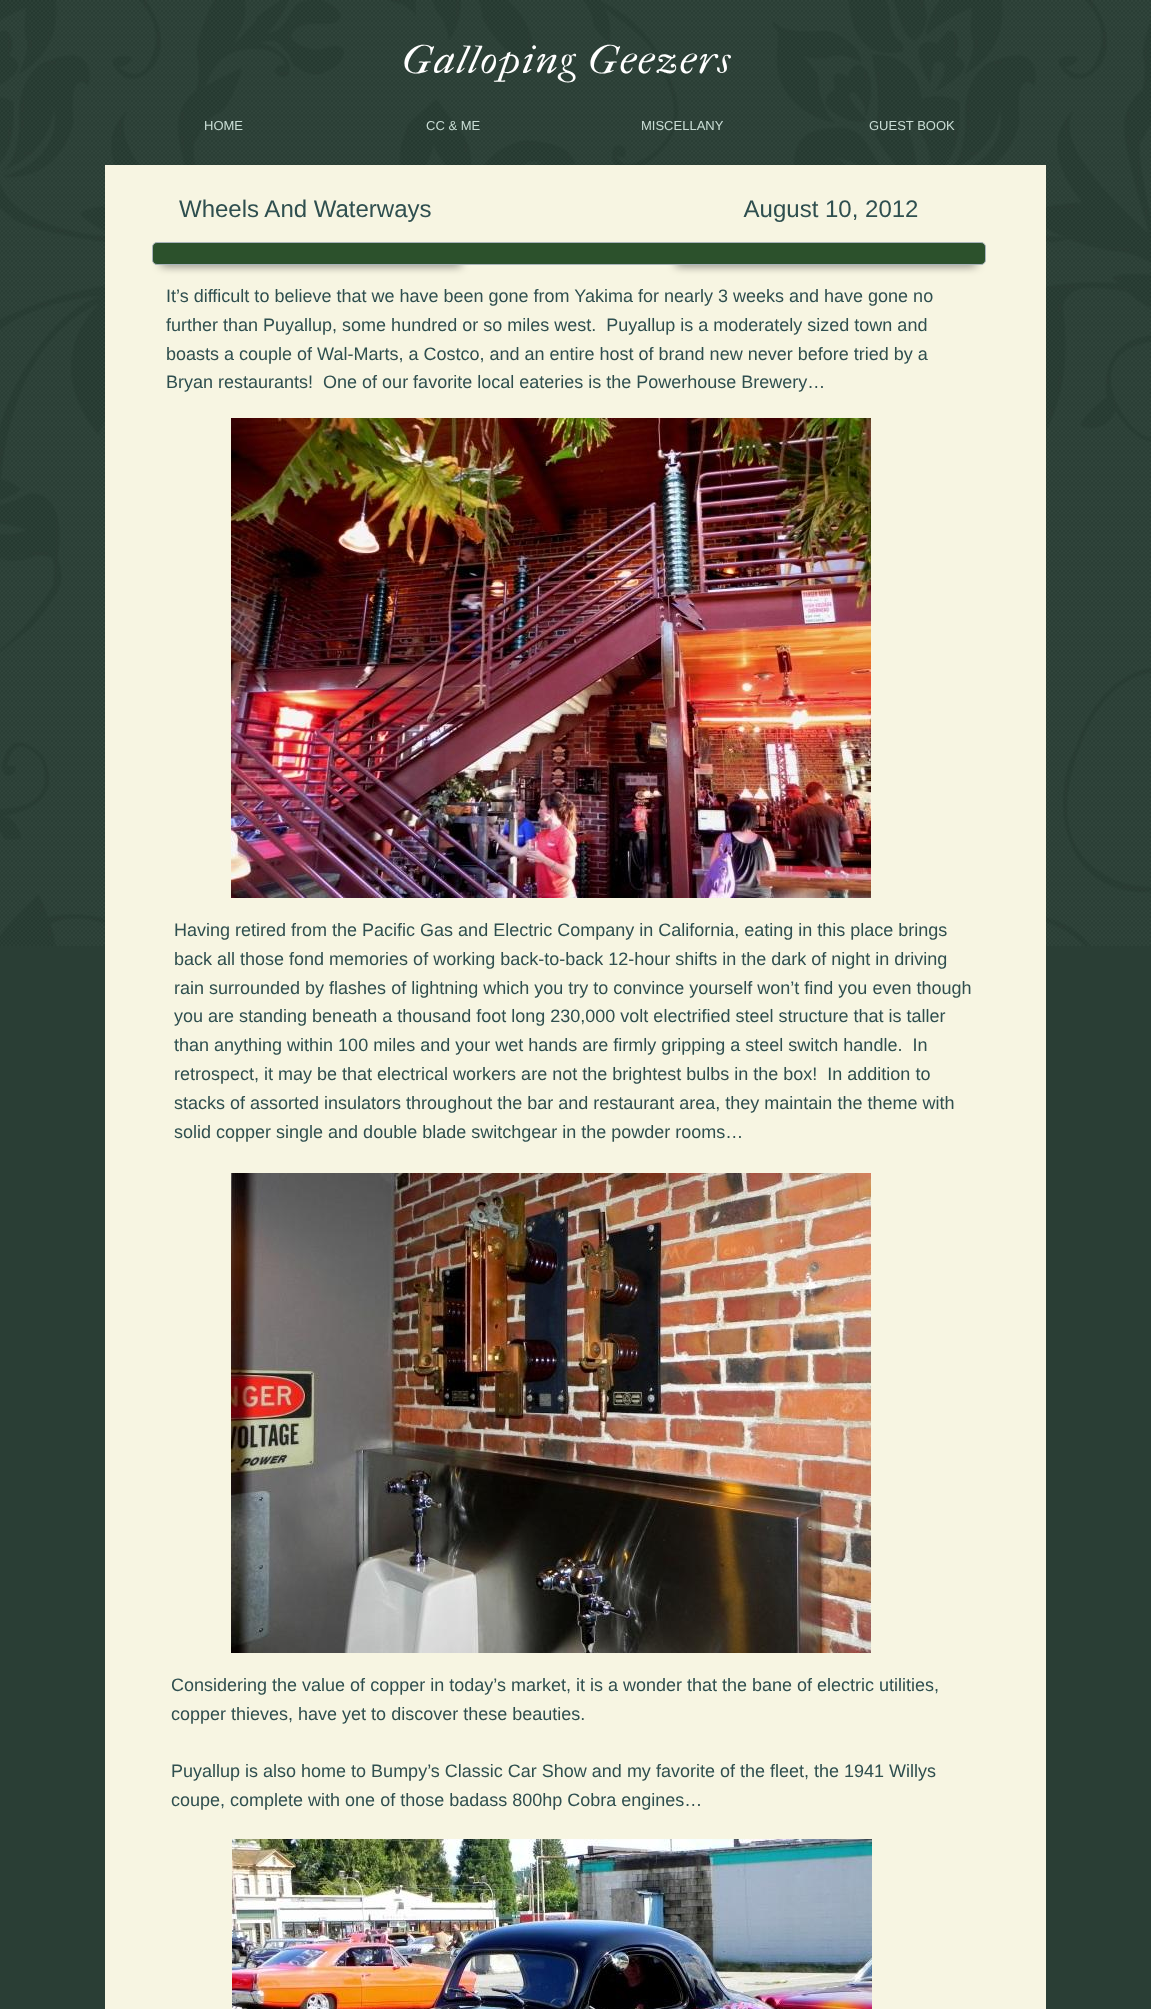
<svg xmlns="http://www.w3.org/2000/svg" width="1151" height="2009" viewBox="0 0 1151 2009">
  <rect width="100%" height="100%" fill="rgb(42,62,53)"/>
  <image x="0" y="0" width="1151" height="946" href="pic1.png"/>
  <rect x="105" y="165" width="941" height="1844" fill="rgb(247,245,226)"/>
  <text x="402" y="73" font-family="IM FELL French Canon" font-size="40" font-style="italic" letter-spacing="2" fill="rgb(255,255,255)">Galloping Geezers</text>
  <g font-family="Liberation Sans" font-size="13" fill="rgb(202,222,214)">
    <text x="204" y="130">HOME</text>
    <text x="426" y="130">CC &amp; ME</text>
    <text x="641" y="130">MISCELLANY</text>
    <text x="869" y="130">GUEST BOOK</text>
  </g>
  <text x="179" y="217" font-family="Liberation Sans" font-size="24" fill="rgb(47,79,79)" xml:space="preserve">Wheels And Waterways                                               August 10, 2012</text>
  <rect x="161" y="260" width="300" height="5" fill="rgba(0,0,0,0.7)" filter="blur(5px)"/>
  <rect x="676" y="260" width="300" height="5" fill="rgba(0,0,0,0.7)" filter="blur(5px)"/>
  <rect x="152.5" y="242.5" width="833" height="22" rx="4.5" fill="rgb(44,81,44)" stroke="rgb(169,180,187)"/>
  <g font-family="Liberation Sans" font-size="18" fill="rgb(47,79,79)">
    <text xml:space="preserve"><tspan x="166" y="302">It’s difficult to believe that we have been gone from Yakima for nearly 3 weeks and have gone no</tspan><tspan x="166" y="331">further than Puyallup, some hundred or so miles west.  Puyallup is a moderately sized town and</tspan><tspan x="166" y="360">boasts a couple of Wal-Marts, a Costco, and an entire host of brand new never before tried by a</tspan><tspan x="166" y="388">Bryan restaurants!  One of our favorite local eateries is the Powerhouse Brewery…</tspan></text>
  </g>
  <image x="231" y="418" width="640" height="480" href="pic2.png"/>
  <g font-family="Liberation Sans" font-size="18" fill="rgb(47,79,79)">
    <text xml:space="preserve"><tspan x="174" y="936">Having retired from the Pacific Gas and Electric Company in California, eating in this place brings</tspan><tspan x="174" y="965">back all those fond memories of working back-to-back 12-hour shifts in the dark of night in driving</tspan><tspan x="174" y="994">rain surrounded by flashes of lightning which you try to convince yourself won’t find you even though</tspan><tspan x="174" y="1022">you are standing beneath a thousand foot long 230,000 volt electrified steel structure that is taller</tspan><tspan x="174" y="1051">than anything within 100 miles and your wet hands are firmly gripping a steel switch handle.  In</tspan><tspan x="174" y="1080">retrospect, it may be that electrical workers are not the brightest bulbs in the box!  In addition to</tspan><tspan x="174" y="1109">stacks of assorted insulators throughout the bar and restaurant area, they maintain the theme with</tspan><tspan x="174" y="1138">solid copper single and double blade switchgear in the powder rooms…</tspan></text>
  </g>
  <image x="231" y="1173" width="640" height="480" href="pic3.png"/>
  <g font-family="Liberation Sans" font-size="18" fill="rgb(47,79,79)">
    <text>
      <tspan x="171" y="1691">Considering the value of copper in today’s market, it is a wonder that the bane of electric utilities,</tspan>
      <tspan x="171" y="1720">copper thieves, have yet to discover these beauties.</tspan>
    </text>
    <text>
      <tspan x="171" y="1777">Puyallup is also home to Bumpy’s Classic Car Show and my favorite of the fleet, the 1941 Willys</tspan>
      <tspan x="171" y="1806">coupe, complete with one of those badass 800hp Cobra engines…</tspan>
    </text>
  </g>
  <image x="232" y="1839" width="640" height="170" href="pic4.png"/>
</svg>
